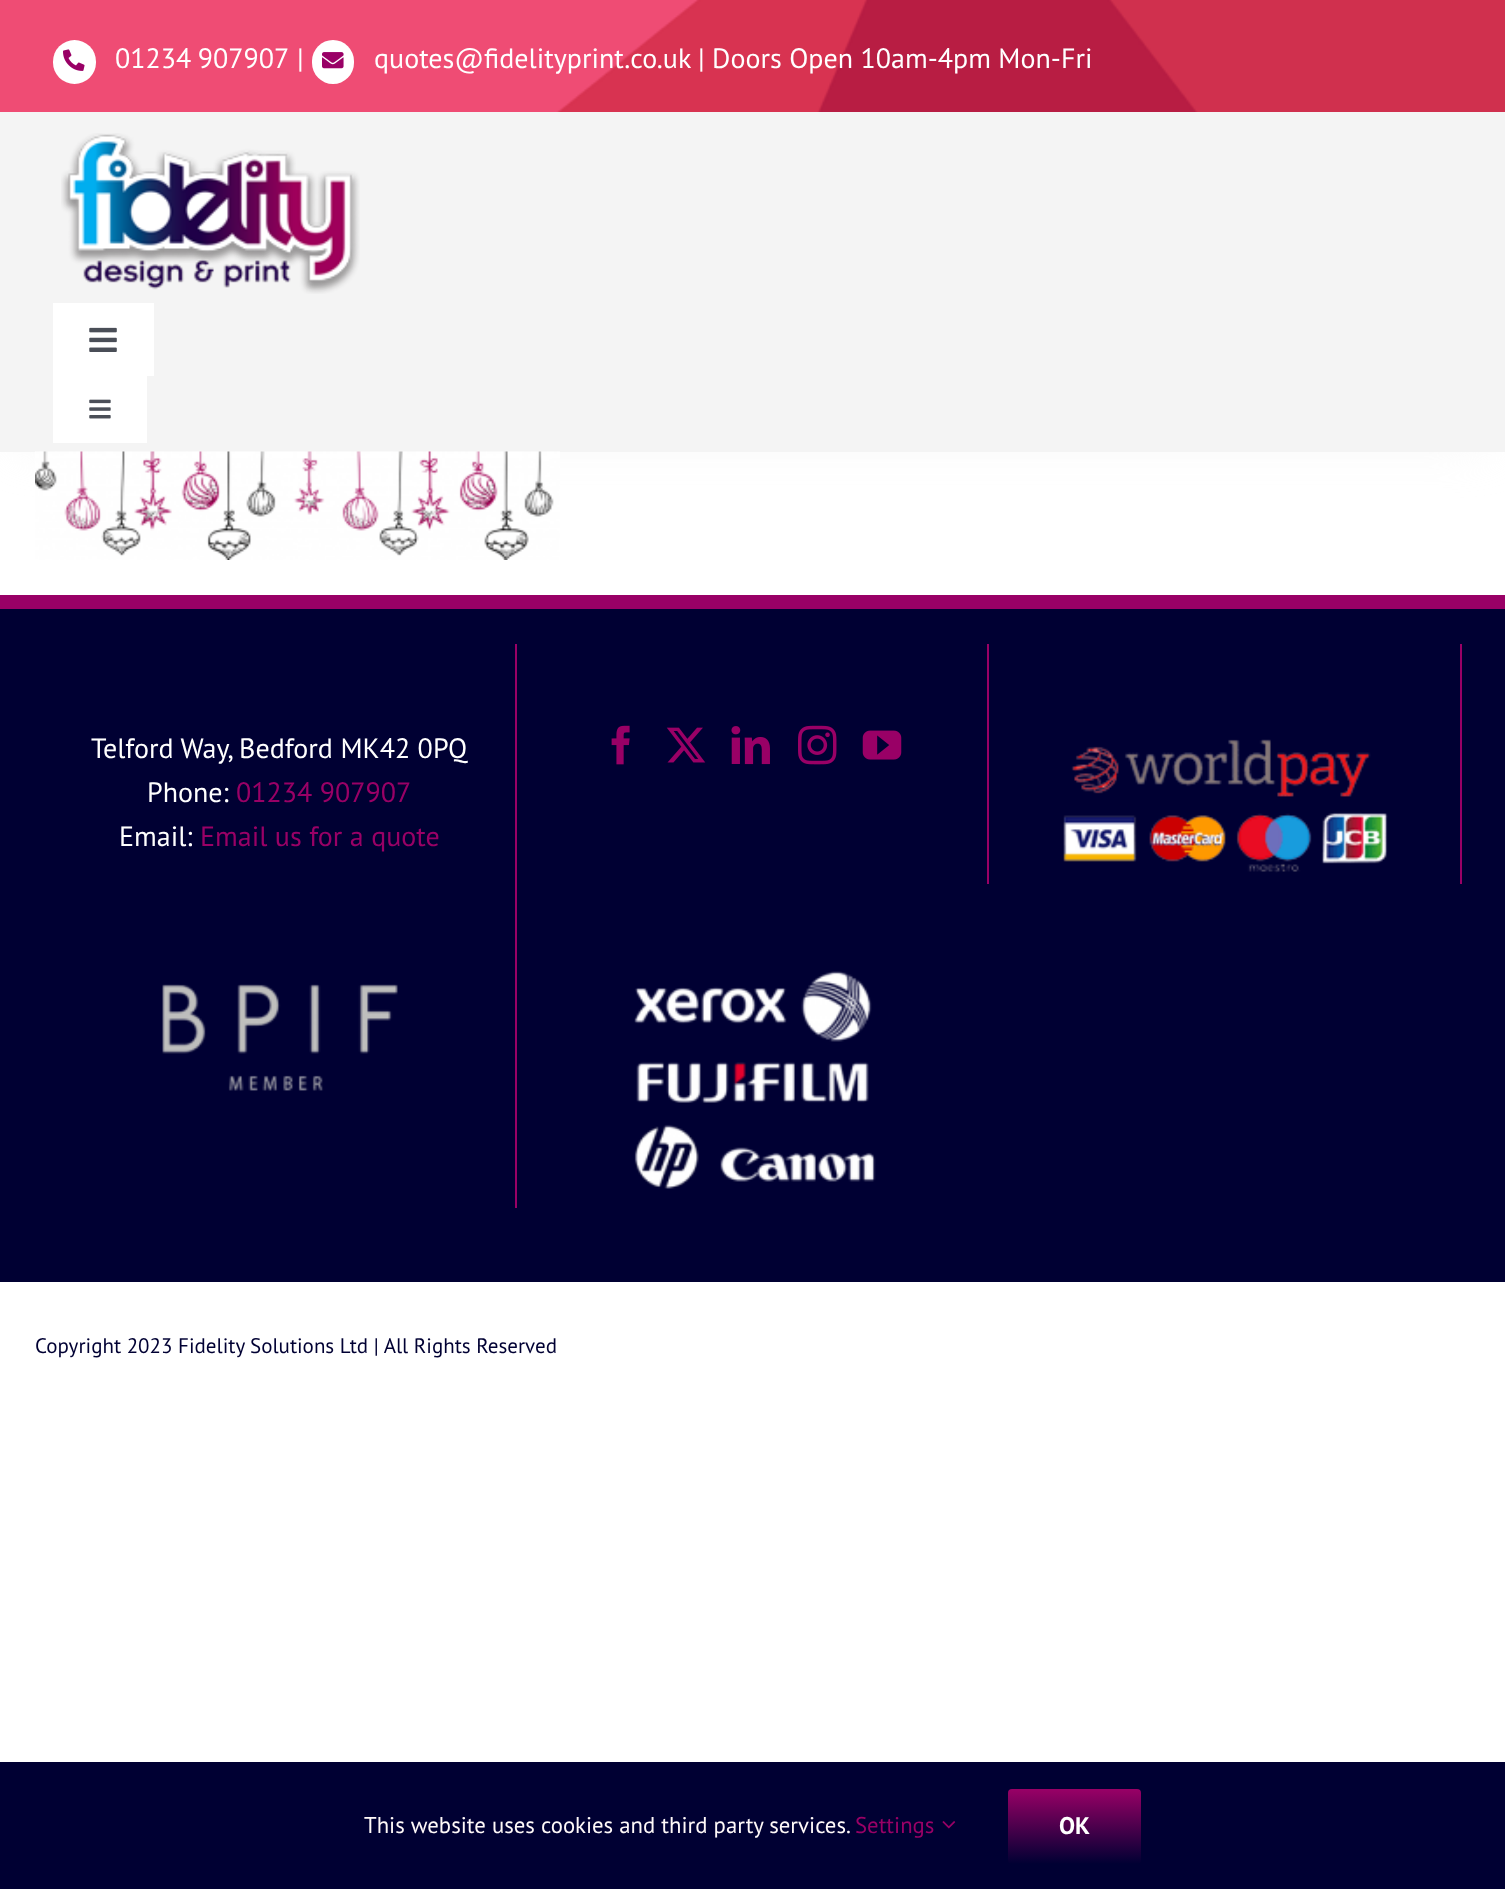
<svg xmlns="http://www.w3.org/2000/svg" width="1505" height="1889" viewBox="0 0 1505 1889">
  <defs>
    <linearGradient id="g1" gradientUnits="userSpaceOnUse" x1="1075" y1="1789" x2="1075" y2="1864"><stop offset="0" stop-color="rgb(153,0,102)"/><stop offset="1" stop-color="rgb(0,0,51)"/></linearGradient>
  </defs>
  <rect width="100%" height="100%" fill="rgb(255,255,255)"/>
  <rect x="23" y="138" width="1463" height="298" fill="rgb(242,242,242)" filter="blur(26px)"/>
  <image x="0" y="0" width="1505" height="112" href="pic1.png"/>
  <rect x="53" y="40" width="43" height="44" rx="21.5" fill="rgb(255,255,255)"/>
  <image x="63" y="49" width="22" height="22" href="pic2.png"/>
  <g font-family="PT Sans" font-size="28" fill="rgb(255,255,255)">
    <text x="115" y="68" word-spacing="-1">01234 907907</text>
    <text x="297" y="68">|</text>
  </g>
  <rect x="312" y="40" width="42" height="44" rx="21" fill="rgb(255,255,255)"/>
  <image x="322" y="52" width="22" height="17" href="pic3.png"/>
  <text x="374" y="68" font-family="PT Sans" font-size="28" fill="rgb(255,255,255)">quotes@fidelityprint.co.uk | Doors Open 10am-4pm Mon-Fri</text>
  <rect x="0" y="112" width="1505" height="340" fill="rgb(244,244,244)"/>
  <image x="61" y="133" width="299" height="161" href="pic4.png"/>
  <rect x="53" y="303" width="101" height="73" fill="rgb(255,255,255)"/>
  <image x="89" y="327" width="28" height="25" href="pic5.png"/>
  <rect x="53" y="376" width="94" height="67" fill="rgb(255,255,255)"/>
  <image x="89" y="399" width="22" height="20" href="pic6.png"/>
  <image x="35" y="451" width="525" height="109" href="pic7.png"/>
  <rect x="0" y="609" width="1505" height="673" fill="rgb(0,0,51)"/>
  <rect x="0" y="595" width="1505" height="14" fill="rgb(153,0,102)"/>
  <rect x="515" y="644" width="2" height="564" fill="rgb(153,0,102)"/>
  <g font-family="PT Sans" font-size="28" fill="rgb(255,255,255)">
    <text x="91" y="758">Telford Way, Bedford MK42 0PQ</text>
    <text x="147" y="802">Phone:</text>
  </g>
  <text x="236" y="802" font-family="PT Sans" font-size="28" fill="rgb(153,0,102)">01234 907907</text>
  <text x="119" y="846" font-family="PT Sans" font-size="28" fill="rgb(255,255,255)">Email:</text>
  <text x="200" y="846" font-family="PT Sans" font-size="28" fill="rgb(153,0,102)">Email us for a quote</text>
  <rect x="987" y="644" width="2" height="240" fill="rgb(153,0,102)"/>
  <image x="611" y="725" width="19" height="40" href="pic8.png"/>
  <image x="666" y="727" width="40" height="36" href="pic9.png"/>
  <image x="731" y="726" width="39" height="39" href="pic10.png"/>
  <image x="798" y="725" width="39" height="40" href="pic11.png"/>
  <image x="862" y="730" width="40" height="30" href="pic12.png"/>
  <rect x="1460" y="644" width="2" height="240" fill="rgb(153,0,102)"/>
  <image x="1063" y="739" width="325" height="134" href="pic13.png"/>
  <image x="162" y="984" width="236" height="107" href="pic14.png"/>
  <image x="634" y="971" width="242" height="218" href="pic15.png"/>
  <text x="35" y="1353" font-family="PT Sans" font-size="21" fill="rgb(0,0,51)">Copyright 2023 Fidelity Solutions Ltd | All Rights Reserved</text>
  <rect x="0" y="1762" width="1505" height="127" fill="rgb(0,0,51)"/>
  <text x="364" y="1833" font-family="PT Sans" font-size="22.75" fill="rgb(255,249,249)">This website uses cookies and third party services.</text>
  <text x="855" y="1833" font-family="PT Sans" font-size="22.75" fill="rgb(153,0,102)">Settings</text>
  <image x="942" y="1821" width="14" height="8" href="pic16.png"/>
  <rect x="1008" y="1789" width="133" height="75" rx="4" fill="url(#g1)"/>
  <text x="1059" y="1834" font-family="PT Sans" font-size="24" font-weight="bold" fill="rgb(255,255,255)">OK</text>
</svg>
